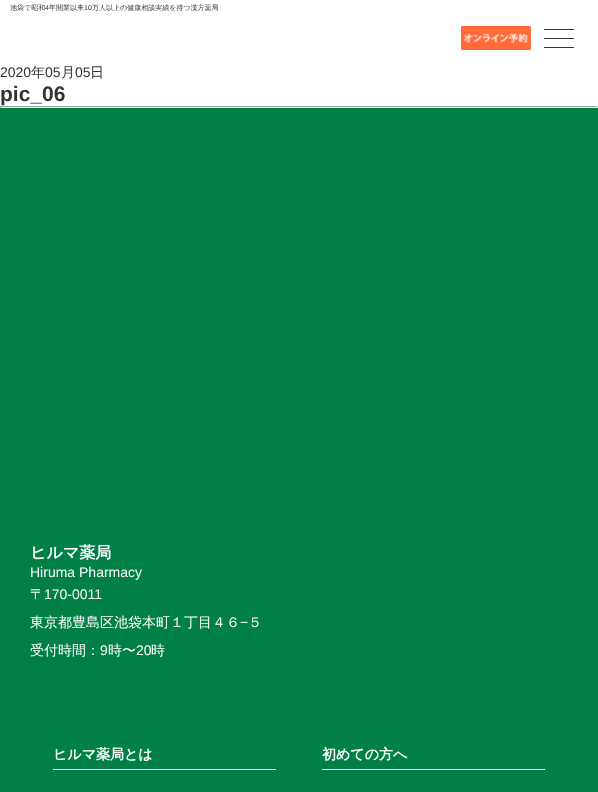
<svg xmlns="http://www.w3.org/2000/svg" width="598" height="792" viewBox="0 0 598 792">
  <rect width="100%" height="100%" fill="rgb(255,255,255)"/>
  <text x="10" y="10" font-family="WenQuanYi Zen Hei" font-size="7" font-weight="500" fill="rgb(51,51,51)">池袋で昭和</text>
  <text x="45" y="10" font-family="Liberation Sans" font-size="7" fill="rgb(51,51,51)">4</text>
  <text x="49" y="10" font-family="WenQuanYi Zen Hei" font-size="7" font-weight="500" fill="rgb(51,51,51)">年開業以来</text>
  <text x="84" y="10" font-family="Liberation Sans" font-size="7" fill="rgb(51,51,51)">10</text>
  <text x="92" y="10" font-family="WenQuanYi Zen Hei" font-size="7" font-weight="500" fill="rgb(51,51,51)">万人以上の健康相談実績を持つ漢方薬局</text>
  <image x="461" y="26" width="70" height="24" href="pic1.png"/>
  <rect x="544" y="29" width="30" height="1" fill="rgb(51,51,51)"/>
  <rect x="544" y="38" width="30" height="1" fill="rgb(51,51,51)"/>
  <rect x="544" y="47" width="30" height="1" fill="rgb(51,51,51)"/>
  <text x="0" y="77" font-family="Liberation Sans" font-size="14" fill="rgb(51,51,51)">2020</text>
  <text x="31" y="77" font-family="WenQuanYi Zen Hei" font-size="14" font-weight="500" fill="rgb(51,51,51)">年</text>
  <text x="45" y="77" font-family="Liberation Sans" font-size="14" fill="rgb(51,51,51)">05</text>
  <text x="61" y="77" font-family="WenQuanYi Zen Hei" font-size="14" font-weight="500" fill="rgb(51,51,51)">月</text>
  <text x="75" y="77" font-family="Liberation Sans" font-size="14" fill="rgb(51,51,51)">05</text>
  <text x="90" y="77" font-family="WenQuanYi Zen Hei" font-size="14" font-weight="500" fill="rgb(51,51,51)">日</text>
  <text x="0" y="101" font-family="Liberation Sans" font-size="21" font-weight="bold" fill="rgb(51,51,51)">pic_06</text>
  <rect x="0" y="106" width="598" height="1" fill="rgb(159,159,159)"/>
  <rect x="597" y="106" width="1" height="2" fill="rgb(238,238,238)"/>
  <rect x="0" y="107" width="598" height="1" fill="rgb(238,238,238)"/>
  <rect x="0" y="106" width="1" height="2" fill="rgb(159,159,159)"/>
  <rect x="0" y="108" width="598" height="684" fill="rgb(0,127,70)"/>
  <text x="30" y="558" font-family="WenQuanYi Zen Hei" font-size="16" font-weight="bold" fill="rgb(255,255,255)">ヒルマ薬局</text>
  <text x="30" y="577" font-family="Liberation Sans" font-size="14" fill="rgb(255,255,255)">Hiruma Pharmacy</text>
  <text x="30" y="599" font-family="WenQuanYi Zen Hei" font-size="14" font-weight="500" fill="rgb(255,255,255)">〒</text>
  <text x="44" y="599" font-family="Liberation Sans" font-size="14" fill="rgb(255,255,255)">170-0011</text>
  <text x="30" y="627" font-family="WenQuanYi Zen Hei" font-size="14" font-weight="500" fill="rgb(255,255,255)">東京都豊島区池袋本町１丁目４６</text>
  <text x="240" y="627" font-family="Liberation Sans" font-size="14" fill="rgb(255,255,255)">−</text>
  <g font-family="WenQuanYi Zen Hei" font-size="14" font-weight="500" fill="rgb(255,255,255)">
    <text x="248" y="627">５</text>
    <text x="30" y="655">受付時間：</text>
  </g>
  <text x="100" y="655" font-family="Liberation Sans" font-size="14" fill="rgb(255,255,255)">9</text>
  <text x="108" y="655" font-family="WenQuanYi Zen Hei" font-size="14" font-weight="500" fill="rgb(255,255,255)">時〜</text>
  <text x="136" y="655" font-family="Liberation Sans" font-size="14" fill="rgb(255,255,255)">20</text>
  <text x="151" y="655" font-family="WenQuanYi Zen Hei" font-size="14" font-weight="500" fill="rgb(255,255,255)">時</text>
  <rect x="53" y="769" width="223" height="1" fill="rgb(255,255,255)"/>
  <text x="53" y="759" font-family="WenQuanYi Zen Hei" font-size="14" font-weight="bold" fill="rgb(255,255,255)">ヒルマ薬局とは</text>
  <rect x="322" y="769" width="223" height="1" fill="rgb(255,255,255)"/>
  <text x="322" y="759" font-family="WenQuanYi Zen Hei" font-size="14" font-weight="bold" fill="rgb(255,255,255)">初めての方へ</text>
</svg>
